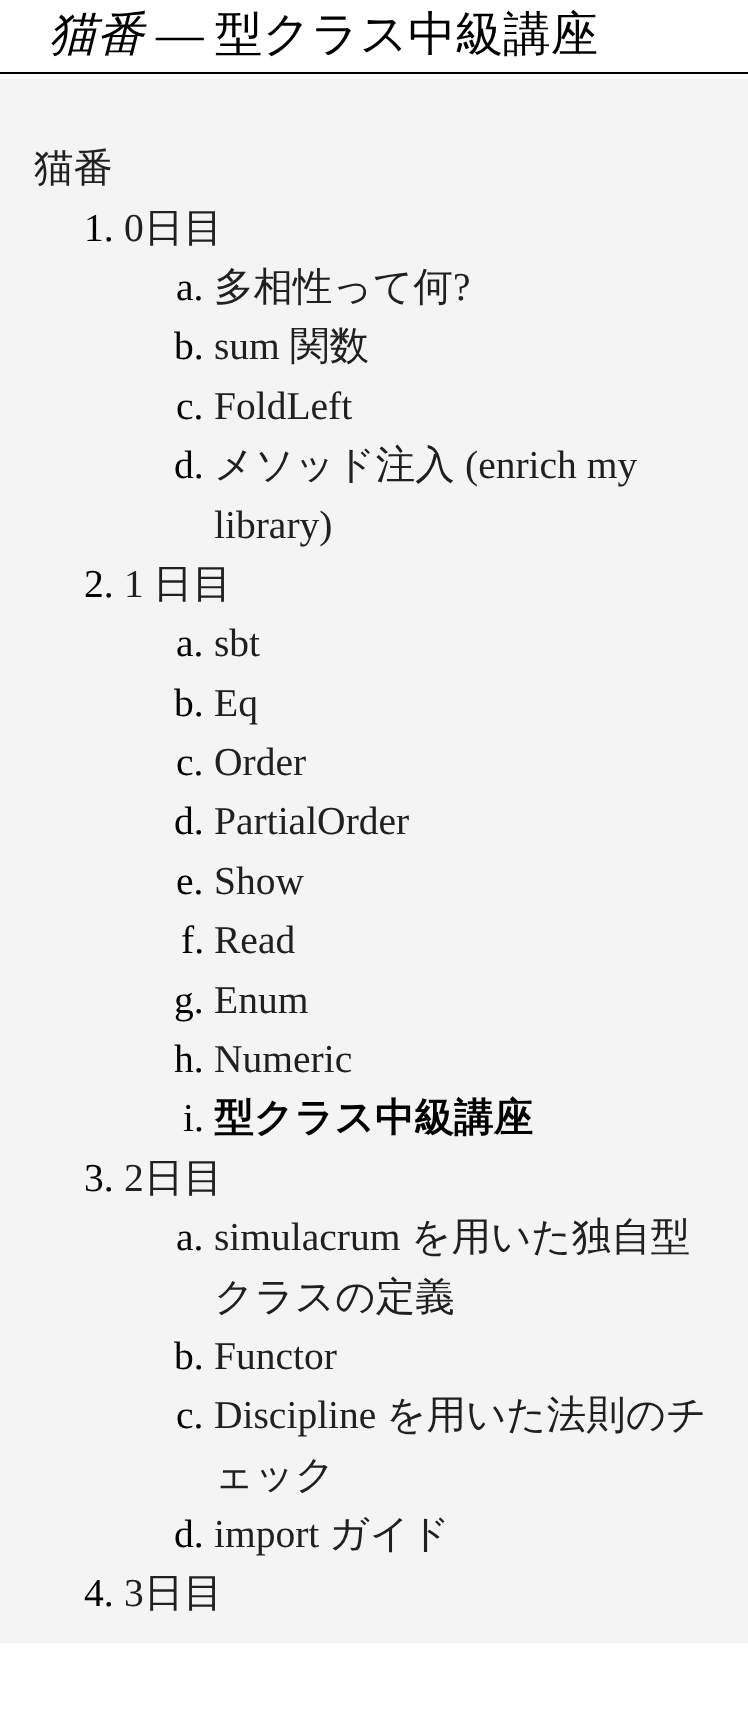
<svg xmlns="http://www.w3.org/2000/svg" width="748" height="1720" viewBox="0 0 748 1720">
  <rect width="100%" height="100%" fill="rgb(255,255,255)"/>
  <rect x="0" y="72" width="748" height="2" fill="rgb(0,0,0)"/>
  <text x="49" y="50" font-family="WenQuanYi Zen Hei" font-size="47.5" font-weight="500" font-style="italic" fill="rgb(0,0,0)">猫番</text>
  <text x="156" y="50" font-family="Liberation Serif" font-size="47.5" fill="rgb(0,0,0)">—</text>
  <text x="215" y="50" font-family="WenQuanYi Zen Hei" font-size="47.5" font-weight="500" fill="rgb(0,0,0)">型クラス中級講座</text>
  <rect x="0" y="79" width="748" height="1564" fill="rgb(244,244,244)"/>
  <text x="34" y="181" font-family="WenQuanYi Zen Hei" font-size="39.5" font-weight="500" fill="rgb(32,32,32)">猫番</text>
  <text x="84" y="241" font-family="Liberation Serif" font-size="39.5" fill="rgb(0,0,0)">1.</text>
  <text x="124" y="241" font-family="Liberation Serif" font-size="39.5" fill="rgb(32,32,32)">0</text>
  <text x="144" y="241" font-family="WenQuanYi Zen Hei" font-size="39.5" font-weight="500" fill="rgb(32,32,32)">日目</text>
  <text x="176" y="300" font-family="Liberation Serif" font-size="39.5" fill="rgb(0,0,0)">a.</text>
  <text x="214" y="300" font-family="WenQuanYi Zen Hei" font-size="39.5" font-weight="500" fill="rgb(32,32,32)">多相性って何</text>
  <text x="453" y="300" font-family="Liberation Serif" font-size="39.5" fill="rgb(32,32,32)">?</text>
  <text x="174" y="359" font-family="Liberation Serif" font-size="39.5" fill="rgb(0,0,0)">b.</text>
  <text x="214" y="359" font-family="Liberation Serif" font-size="39.5" fill="rgb(32,32,32)">sum</text>
  <text x="290" y="359" font-family="WenQuanYi Zen Hei" font-size="39.5" font-weight="500" fill="rgb(32,32,32)">関数</text>
  <text x="176" y="419" font-family="Liberation Serif" font-size="39.5" fill="rgb(0,0,0)">c.</text>
  <text x="214" y="419" font-family="Liberation Serif" font-size="39.5" fill="rgb(32,32,32)">FoldLeft</text>
  <text x="174" y="478" font-family="Liberation Serif" font-size="39.5" fill="rgb(0,0,0)">d.</text>
  <text x="214" y="478" font-family="WenQuanYi Zen Hei" font-size="39.5" font-weight="500" fill="rgb(32,32,32)">メソッド注入</text>
  <g font-family="Liberation Serif" font-size="39.5" fill="rgb(32,32,32)">
    <text x="465" y="478">(enrich my</text>
    <text x="214" y="538">library)</text>
  </g>
  <text x="84" y="597" font-family="Liberation Serif" font-size="39.5" fill="rgb(0,0,0)">2.</text>
  <text x="124" y="597" font-family="Liberation Serif" font-size="39.5" fill="rgb(32,32,32)">1</text>
  <text x="153" y="597" font-family="WenQuanYi Zen Hei" font-size="39.5" font-weight="500" fill="rgb(32,32,32)">日目</text>
  <text x="176" y="656" font-family="Liberation Serif" font-size="39.5" fill="rgb(0,0,0)">a.</text>
  <text x="214" y="656" font-family="Liberation Serif" font-size="39.5" fill="rgb(32,32,32)">sbt</text>
  <text x="174" y="716" font-family="Liberation Serif" font-size="39.5" fill="rgb(0,0,0)">b.</text>
  <text x="214" y="716" font-family="Liberation Serif" font-size="39.5" fill="rgb(32,32,32)">Eq</text>
  <text x="176" y="775" font-family="Liberation Serif" font-size="39.5" fill="rgb(0,0,0)">c.</text>
  <text x="214" y="775" font-family="Liberation Serif" font-size="39.5" fill="rgb(32,32,32)">Order</text>
  <text x="174" y="834" font-family="Liberation Serif" font-size="39.5" fill="rgb(0,0,0)">d.</text>
  <text x="214" y="834" font-family="Liberation Serif" font-size="39.5" fill="rgb(32,32,32)">PartialOrder</text>
  <text x="176" y="894" font-family="Liberation Serif" font-size="39.5" fill="rgb(0,0,0)">e.</text>
  <text x="214" y="894" font-family="Liberation Serif" font-size="39.5" fill="rgb(32,32,32)">Show</text>
  <text x="181" y="953" font-family="Liberation Serif" font-size="39.5" fill="rgb(0,0,0)">f.</text>
  <text x="214" y="953" font-family="Liberation Serif" font-size="39.5" fill="rgb(32,32,32)">Read</text>
  <text x="174" y="1013" font-family="Liberation Serif" font-size="39.5" fill="rgb(0,0,0)">g.</text>
  <text x="214" y="1013" font-family="Liberation Serif" font-size="39.5" fill="rgb(32,32,32)">Enum</text>
  <text x="174" y="1072" font-family="Liberation Serif" font-size="39.5" fill="rgb(0,0,0)">h.</text>
  <text x="214" y="1072" font-family="Liberation Serif" font-size="39.5" fill="rgb(32,32,32)">Numeric</text>
  <text x="183" y="1131" font-family="Liberation Serif" font-size="39.5" fill="rgb(0,0,0)">i.</text>
  <text x="214" y="1131" font-family="WenQuanYi Zen Hei" font-size="39.5" font-weight="bold" fill="rgb(0,0,0)">型クラス中級講座</text>
  <text x="84" y="1191" font-family="Liberation Serif" font-size="39.5" fill="rgb(0,0,0)">3.</text>
  <text x="124" y="1191" font-family="Liberation Serif" font-size="39.5" fill="rgb(32,32,32)">2</text>
  <text x="144" y="1191" font-family="WenQuanYi Zen Hei" font-size="39.5" font-weight="500" fill="rgb(32,32,32)">日目</text>
  <text x="176" y="1250" font-family="Liberation Serif" font-size="39.5" fill="rgb(0,0,0)">a.</text>
  <text x="214" y="1250" font-family="Liberation Serif" font-size="39.5" fill="rgb(32,32,32)">simulacrum</text>
  <g font-family="WenQuanYi Zen Hei" font-size="39.5" font-weight="500" fill="rgb(32,32,32)">
    <text x="411" y="1250">を用いた独自型</text>
    <text x="214" y="1310">クラスの定義</text>
  </g>
  <text x="174" y="1369" font-family="Liberation Serif" font-size="39.5" fill="rgb(0,0,0)">b.</text>
  <text x="214" y="1369" font-family="Liberation Serif" font-size="39.5" fill="rgb(32,32,32)">Functor</text>
  <text x="176" y="1428" font-family="Liberation Serif" font-size="39.5" fill="rgb(0,0,0)">c.</text>
  <text x="214" y="1428" font-family="Liberation Serif" font-size="39.5" fill="rgb(32,32,32)">Discipline</text>
  <g font-family="WenQuanYi Zen Hei" font-size="39.5" font-weight="500" fill="rgb(32,32,32)">
    <text x="386" y="1428">を用いた法則のチ</text>
    <text x="214" y="1488">ェック</text>
  </g>
  <text x="174" y="1547" font-family="Liberation Serif" font-size="39.5" fill="rgb(0,0,0)">d.</text>
  <text x="214" y="1547" font-family="Liberation Serif" font-size="39.5" fill="rgb(32,32,32)">import</text>
  <text x="329" y="1547" font-family="WenQuanYi Zen Hei" font-size="39.5" font-weight="500" fill="rgb(32,32,32)">ガイド</text>
  <text x="84" y="1606" font-family="Liberation Serif" font-size="39.5" fill="rgb(0,0,0)">4.</text>
  <text x="124" y="1606" font-family="Liberation Serif" font-size="39.5" fill="rgb(32,32,32)">3</text>
  <text x="144" y="1606" font-family="WenQuanYi Zen Hei" font-size="39.5" font-weight="500" fill="rgb(32,32,32)">日目</text>
</svg>
